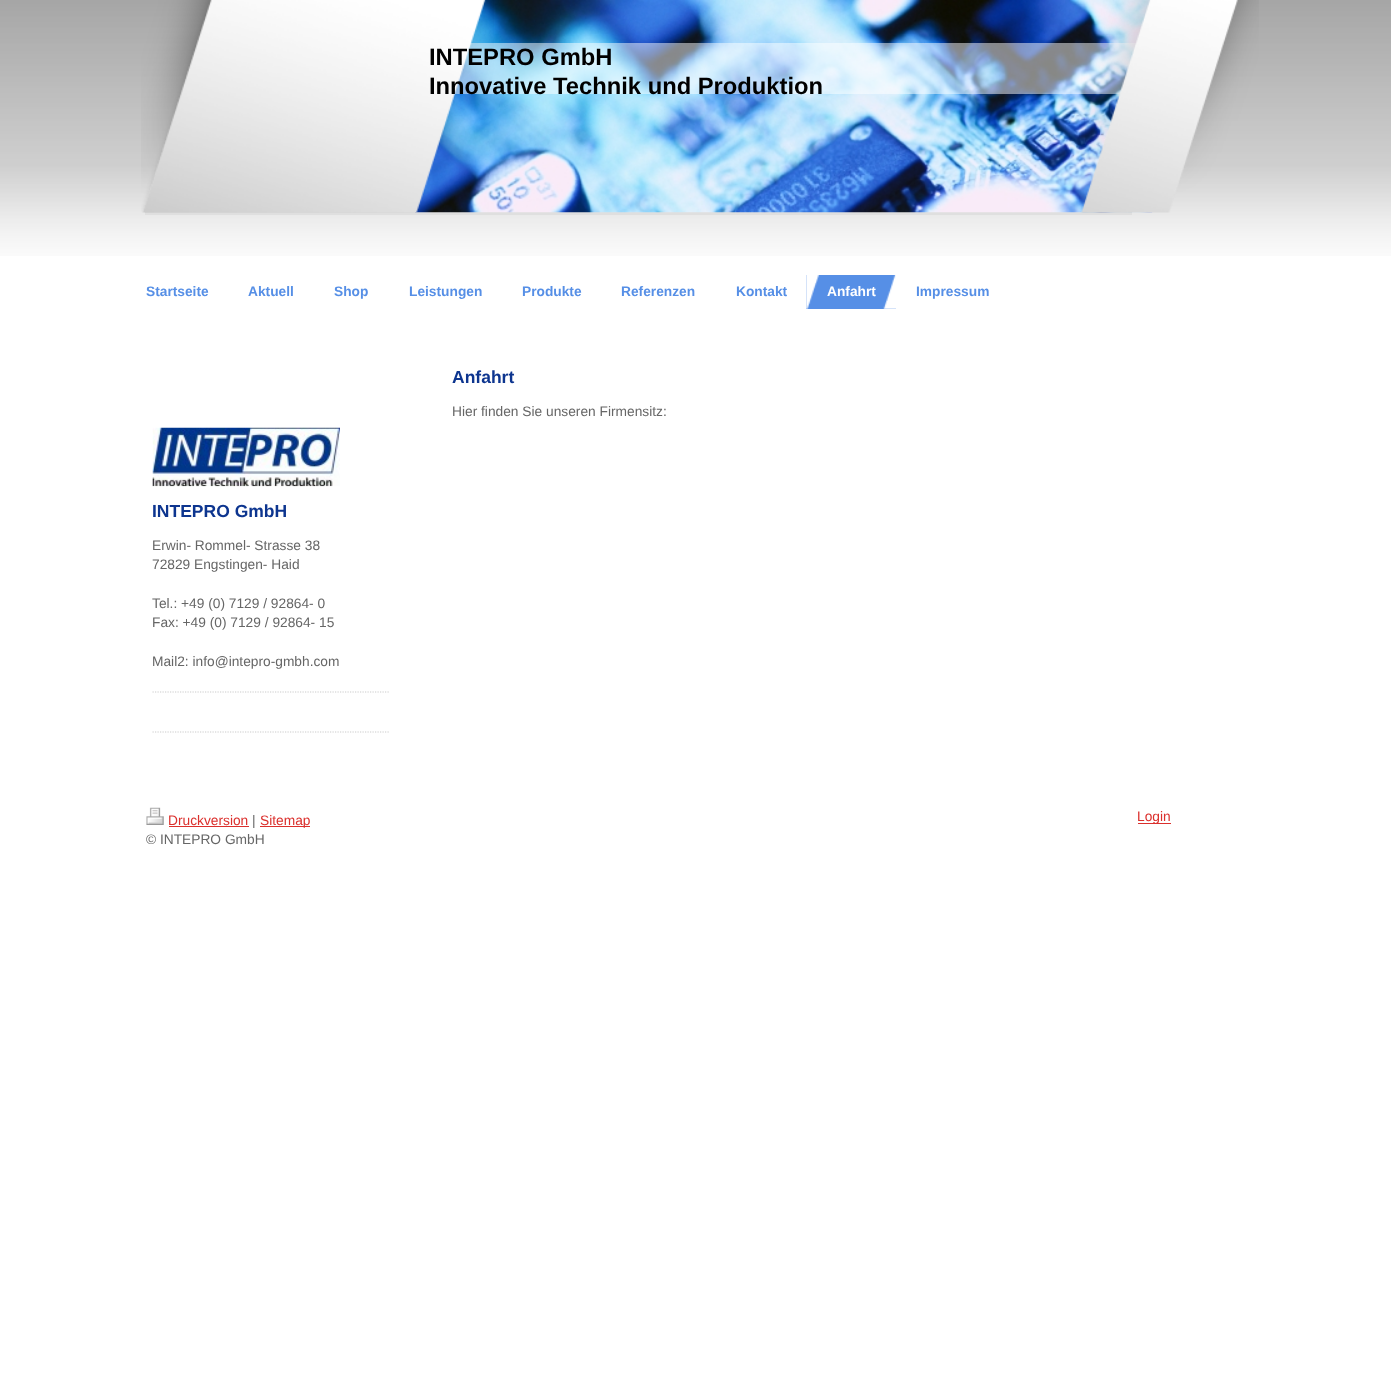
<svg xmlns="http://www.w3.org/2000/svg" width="1391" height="1394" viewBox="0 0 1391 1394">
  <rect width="100%" height="100%" fill="rgb(255,255,255)"/>
  <image x="0" y="0" width="1391" height="256" href="pic1.png"/>
  <rect x="415" y="212" width="738" height="1" fill="rgb(236,236,236)"/>
  <image x="415" y="0" width="738" height="213" href="pic3.png"/>
  <rect x="453" y="43" width="684" height="51" fill="rgba(255,255,255,0.5)"/>
  <image x="141" y="0" width="353" height="213" href="pic2.png"/>
  <g font-family="Liberation Sans" font-size="23.75" font-weight="bold" fill="rgb(0,0,0)">
    <text>
      <tspan x="429" y="65">INTEPRO GmbH</tspan>
      <tspan x="429" y="94">Innovative Technik und Produktion</tspan>
    </text>
  </g>
  <image x="1081" y="0" width="178" height="213" href="pic4.png"/>
  <rect x="145" y="212" width="987" height="3" fill="rgba(0,0,0,0.04)"/>
  <g font-family="Liberation Sans" font-size="13.75" font-weight="bold" fill="rgb(86,143,230)">
    <text x="146" y="296">Startseite</text>
    <text x="248" y="296">Aktuell</text>
    <text x="334" y="296">Shop</text>
    <text x="409" y="296">Leistungen</text>
    <text x="522" y="296">Produkte</text>
    <text x="621" y="296">Referenzen</text>
    <text x="736" y="296">Kontakt</text>
  </g>
  <rect x="806" y="275" width="90" height="34" fill="rgb(86,143,230)"/>
  <image x="806" y="275" width="13" height="34" href="pic5.png"/>
  <image x="883" y="275" width="13" height="34" href="pic6.png"/>
  <text x="827" y="296" font-family="Liberation Sans" font-size="13.75" font-weight="bold" fill="rgb(255,255,255)">Anfahrt</text>
  <text x="916" y="296" font-family="Liberation Sans" font-size="13.75" font-weight="bold" fill="rgb(86,143,230)">Impressum</text>
  <text x="452" y="383" font-family="Liberation Sans" font-size="17.5" font-weight="bold" fill="rgb(13,53,143)">Anfahrt</text>
  <text x="452" y="416" font-family="Liberation Sans" font-size="13.75" fill="rgb(102,102,102)">Hier finden Sie unseren Firmensitz:</text>
  <image x="152" y="427" width="188" height="60" href="pic7.png"/>
  <text x="152" y="517" font-family="Liberation Sans" font-size="17.5" font-weight="bold" fill="rgb(13,53,143)">INTEPRO GmbH</text>
  <g font-family="Liberation Sans" font-size="13.75" fill="rgb(102,102,102)">
    <text>
      <tspan x="152" y="550">Erwin- Rommel- Strasse 38</tspan>
      <tspan x="152" y="569">72829 Engstingen- Haid</tspan>
    </text>
    <text>
      <tspan x="152" y="608">Tel.: +49 (0) 7129 / 92864- 0</tspan>
      <tspan x="152" y="627">Fax: +49 (0) 7129 / 92864- 15</tspan>
    </text>
    <text x="152" y="666">Mail2: info@intepro-gmbh.com</text>
  </g>
  <path d="M152.5 692H390" fill="none" stroke="rgb(204,204,204)" stroke-width="1.2" stroke-dasharray="1.25 1.25"/>
  <path d="M152.5 732H390" fill="none" stroke="rgb(204,204,204)" stroke-width="1.2" stroke-dasharray="1.25 1.25"/>
  <image x="146" y="807" width="18" height="18" href="pic8.png"/>
  <text x="168" y="825" font-family="Liberation Sans" font-size="13.75" fill="rgb(219,47,44)">Druckversion</text>
  <rect x="169" y="826" width="80" height="1" fill="rgb(219,47,44)"/>
  <text x="252" y="825" font-family="Liberation Sans" font-size="13.75" fill="rgb(102,102,102)">|</text>
  <rect x="260" y="826" width="50" height="1" fill="rgb(219,47,44)"/>
  <text x="260" y="825" font-family="Liberation Sans" font-size="13.75" fill="rgb(219,47,44)">Sitemap</text>
  <text x="146" y="844" font-family="Liberation Sans" font-size="13.75" fill="rgb(102,102,102)">© INTEPRO GmbH</text>
  <rect x="1138" y="823" width="33" height="1" fill="rgb(219,47,44)"/>
  <text x="1137" y="821" font-family="Liberation Sans" font-size="13.75" fill="rgb(219,47,44)">Login</text>
</svg>
